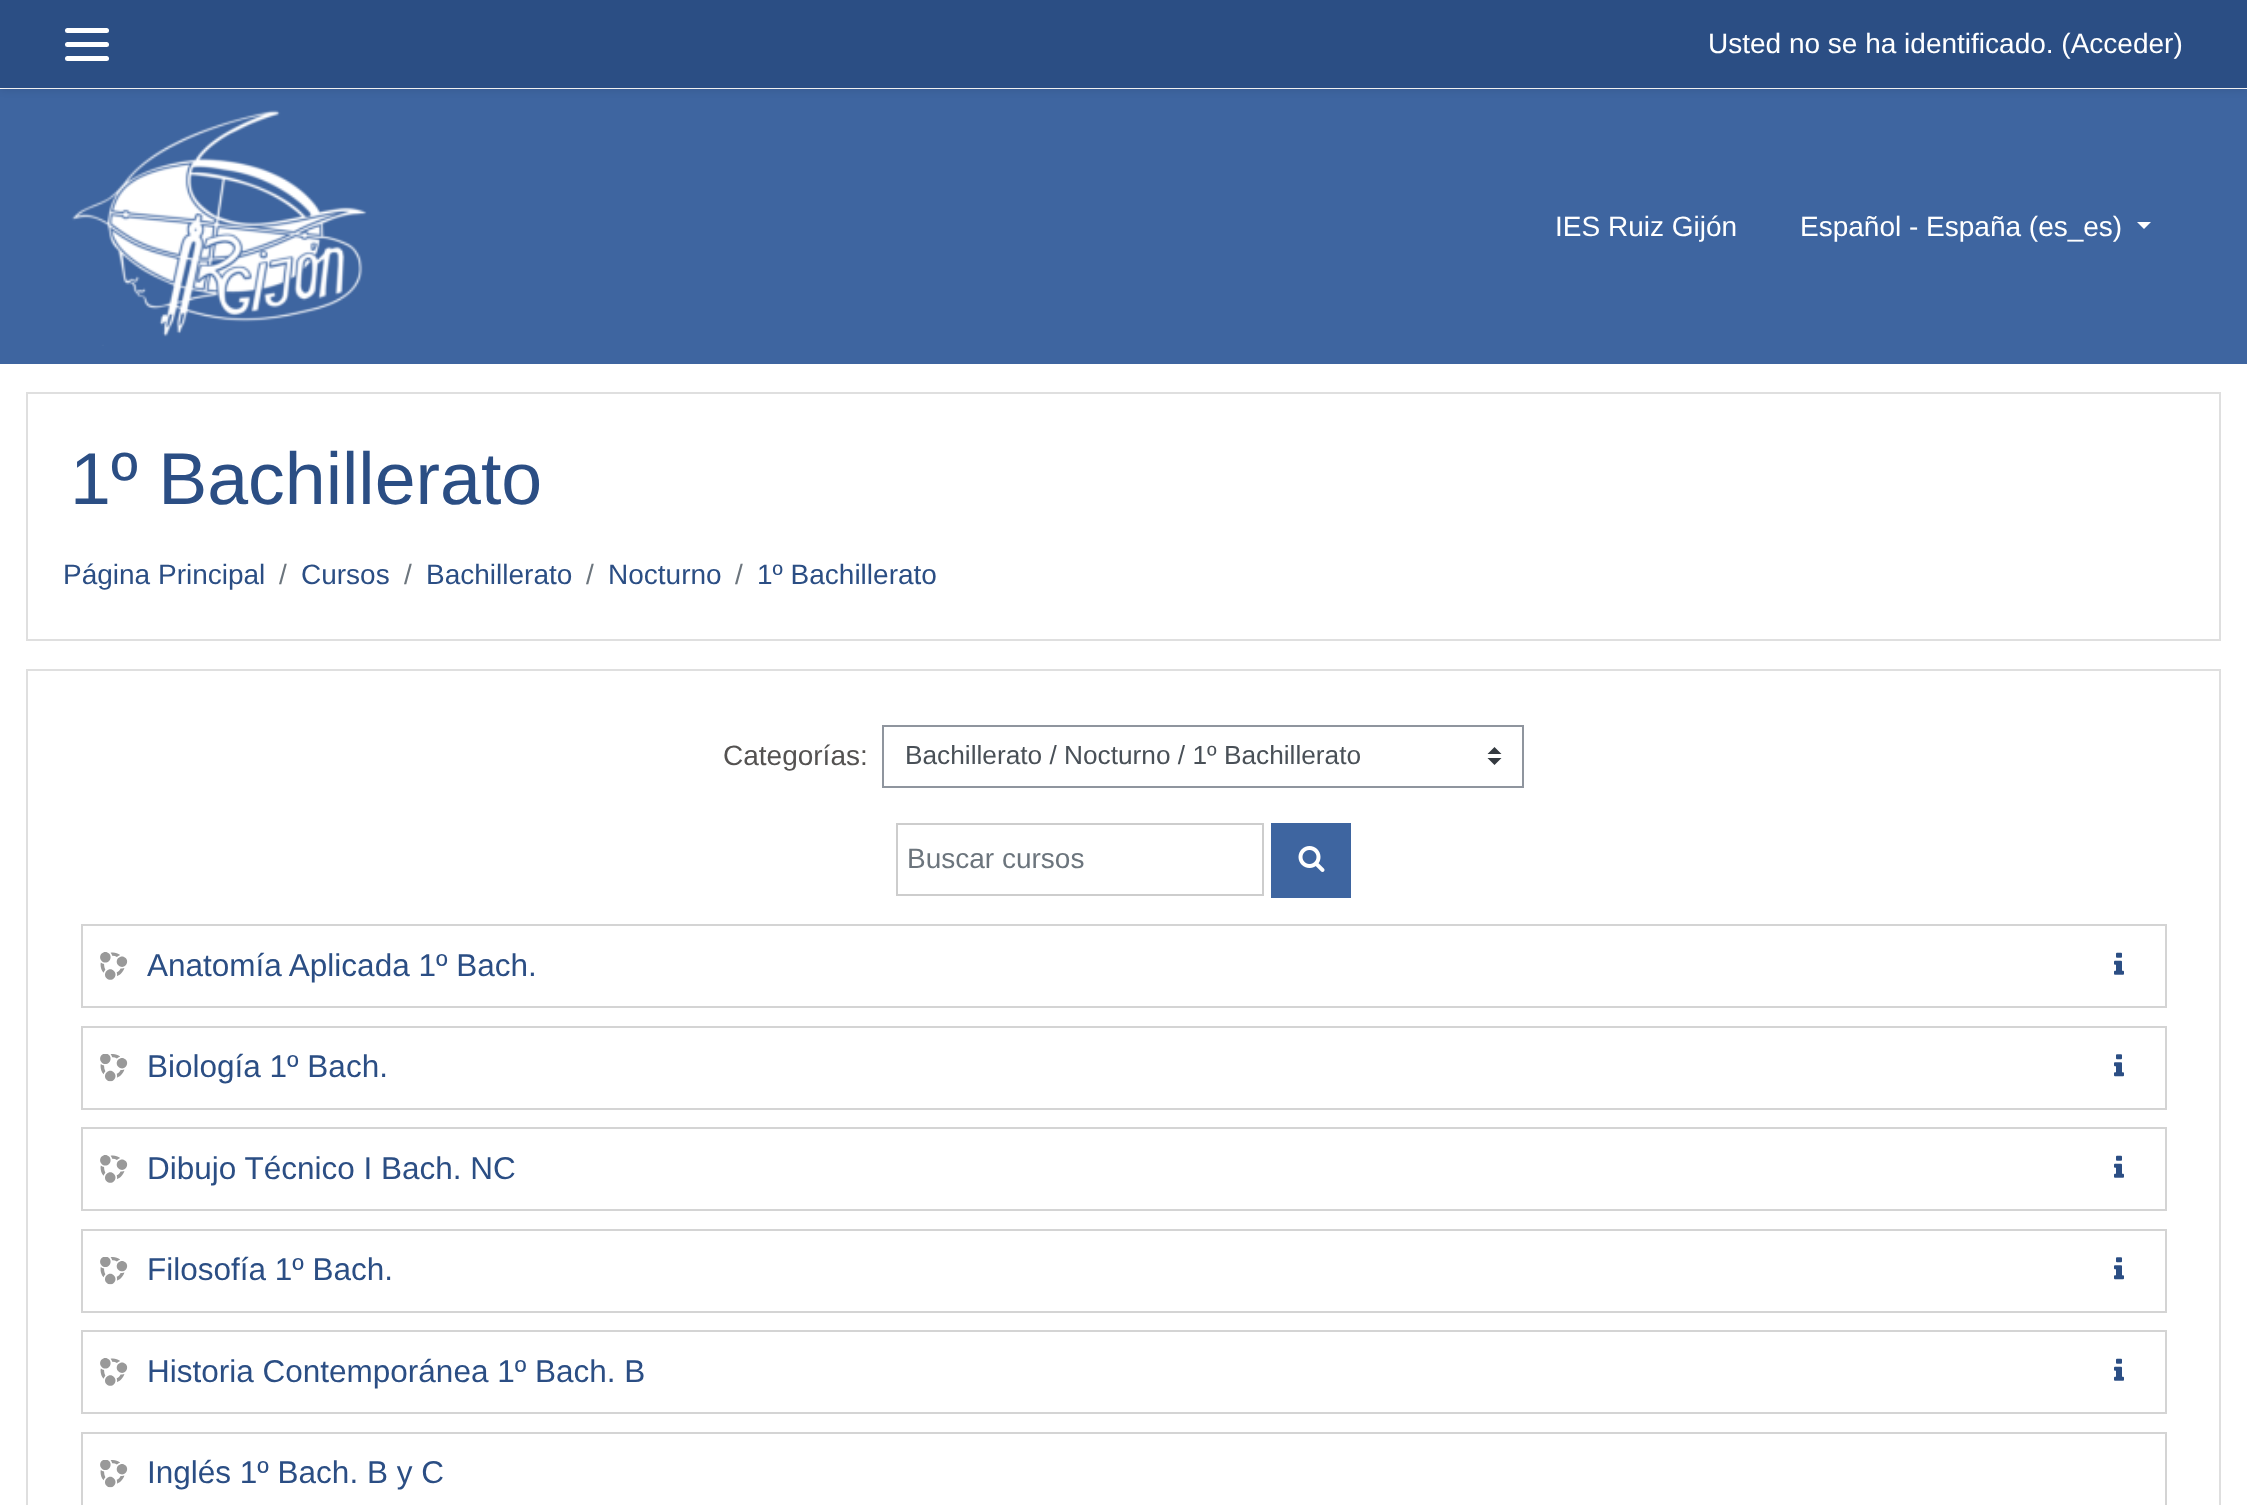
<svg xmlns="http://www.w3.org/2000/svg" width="2247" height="1505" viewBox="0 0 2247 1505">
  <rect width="100%" height="100%" fill="rgb(255,255,255)"/>
  <rect x="0" y="89" width="2247" height="275" fill="rgb(62,101,160)"/>
  <rect x="0" y="4" width="2247" height="87" fill="rgba(0,0,0,0.08)" filter="blur(3.5px)"/>
  <rect x="0" y="0" width="2247" height="88" fill="rgb(43,78,132)"/>
  <rect x="65" y="28" width="44" height="5" rx="2.5" fill="rgb(255,255,255)"/>
  <rect x="65" y="42" width="44" height="5" rx="2.5" fill="rgb(255,255,255)"/>
  <rect x="65" y="56" width="44" height="5" rx="2.5" fill="rgb(255,255,255)"/>
  <text x="1708" y="53" font-family="Liberation Sans" font-size="28" fill="rgb(255,255,255)">Usted no se ha identificado. (Acceder)</text>
  <image x="71" y="110" width="296" height="236" href="pic1.png"/>
  <g font-family="Liberation Sans" font-size="28" fill="rgb(255,255,255)">
    <text x="1555" y="236">IES Ruiz Gijón</text>
    <text x="1800" y="236">Español - España (es_es)</text>
  </g>
  <path d="M2137 222H2151L2144 229Z" fill="rgb(255,255,255)"/>
  <rect x="27" y="393" width="2193" height="247" fill="none" stroke="rgb(223,223,223)" stroke-width="2"/>
  <text x="70" y="504" font-family="Liberation Sans" font-size="73.5" fill="rgb(43,78,132)">1º Bachillerato</text>
  <text x="63" y="584" font-family="Liberation Sans" font-size="28" fill="rgb(43,78,132)">Página Principal</text>
  <text x="279" y="584" font-family="Liberation Sans" font-size="28" fill="rgb(108,117,125)">/</text>
  <text x="301" y="584" font-family="Liberation Sans" font-size="28" fill="rgb(43,78,132)">Cursos</text>
  <text x="404" y="584" font-family="Liberation Sans" font-size="28" fill="rgb(108,117,125)">/</text>
  <text x="426" y="584" font-family="Liberation Sans" font-size="28" fill="rgb(43,78,132)">Bachillerato</text>
  <text x="586" y="584" font-family="Liberation Sans" font-size="28" fill="rgb(108,117,125)">/</text>
  <text x="608" y="584" font-family="Liberation Sans" font-size="28" fill="rgb(43,78,132)">Nocturno</text>
  <text x="735" y="584" font-family="Liberation Sans" font-size="28" fill="rgb(108,117,125)">/</text>
  <text x="757" y="584" font-family="Liberation Sans" font-size="28" fill="rgb(43,78,132)">1º Bachillerato</text>
  <rect x="27" y="670" width="2193" height="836" fill="none" stroke="rgb(223,223,223)" stroke-width="2"/>
  <text x="723" y="765" font-family="Liberation Sans" font-size="28" fill="rgb(84,82,81)">Categorías:</text>
  <path d="M1494.5 747L1487.5 754H1501.5ZM1494.5 765L1487.5 758H1501.5Z" fill="rgb(52,58,64)"/>
  <rect x="883" y="726" width="640" height="61" fill="none" stroke="rgb(143,149,158)" stroke-width="2"/>
  <text x="905" y="764" font-family="Liberation Sans" font-size="26.25" fill="rgb(73,80,87)">Bachillerato / Nocturno / 1º Bachillerato</text>
  <rect x="897" y="824" width="366" height="71" fill="none" stroke="rgb(205,205,205)" stroke-width="2"/>
  <text x="907" y="868" font-family="Liberation Sans" font-size="28" fill="rgb(108,117,125)">Buscar cursos</text>
  <rect x="1271" y="823" width="80" height="75" fill="rgb(62,101,160)"/>
  <image x="1298" y="846" width="27" height="26" href="pic2.png"/>
  <rect x="82" y="925" width="2084" height="82" fill="none" stroke="rgb(212,212,212)" stroke-width="2"/>
  <image x="100" y="952" width="28" height="28" href="pic3.png"/>
  <text x="147" y="976" font-family="Liberation Sans" font-size="31.5" fill="rgb(43,78,132)">Anatomía Aplicada 1º Bach.</text>
  <image x="2114" y="952" width="10" height="23" href="pic4.png"/>
  <rect x="82" y="1027" width="2084" height="82" fill="none" stroke="rgb(212,212,212)" stroke-width="2"/>
  <image x="100" y="1054" width="28" height="28" href="pic5.png"/>
  <text x="147" y="1077" font-family="Liberation Sans" font-size="31.5" fill="rgb(43,78,132)">Biología 1º Bach.</text>
  <image x="2114" y="1054" width="10" height="23" href="pic6.png"/>
  <rect x="82" y="1128" width="2084" height="82" fill="none" stroke="rgb(212,212,212)" stroke-width="2"/>
  <image x="100" y="1155" width="28" height="28" href="pic3.png"/>
  <text x="147" y="1179" font-family="Liberation Sans" font-size="31.5" fill="rgb(43,78,132)">Dibujo Técnico I Bach. NC</text>
  <image x="2114" y="1155" width="10" height="23" href="pic4.png"/>
  <rect x="82" y="1230" width="2084" height="82" fill="none" stroke="rgb(212,212,212)" stroke-width="2"/>
  <image x="100" y="1257" width="28" height="28" href="pic7.png"/>
  <text x="147" y="1280" font-family="Liberation Sans" font-size="31.5" fill="rgb(43,78,132)">Filosofía 1º Bach.</text>
  <image x="2114" y="1257" width="10" height="23" href="pic6.png"/>
  <rect x="82" y="1331" width="2084" height="82" fill="none" stroke="rgb(212,212,212)" stroke-width="2"/>
  <image x="100" y="1358" width="28" height="28" href="pic3.png"/>
  <text x="147" y="1382" font-family="Liberation Sans" font-size="31.5" fill="rgb(43,78,132)">Historia Contemporánea 1º Bach. B</text>
  <image x="2114" y="1358" width="10" height="23" href="pic4.png"/>
  <rect x="82" y="1433" width="2084" height="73" fill="none" stroke="rgb(212,212,212)" stroke-width="2"/>
  <image x="100" y="1460" width="28" height="28" href="pic5.png"/>
  <text x="147" y="1483" font-family="Liberation Sans" font-size="31.5" fill="rgb(43,78,132)">Inglés 1º Bach. B y C</text>
</svg>
